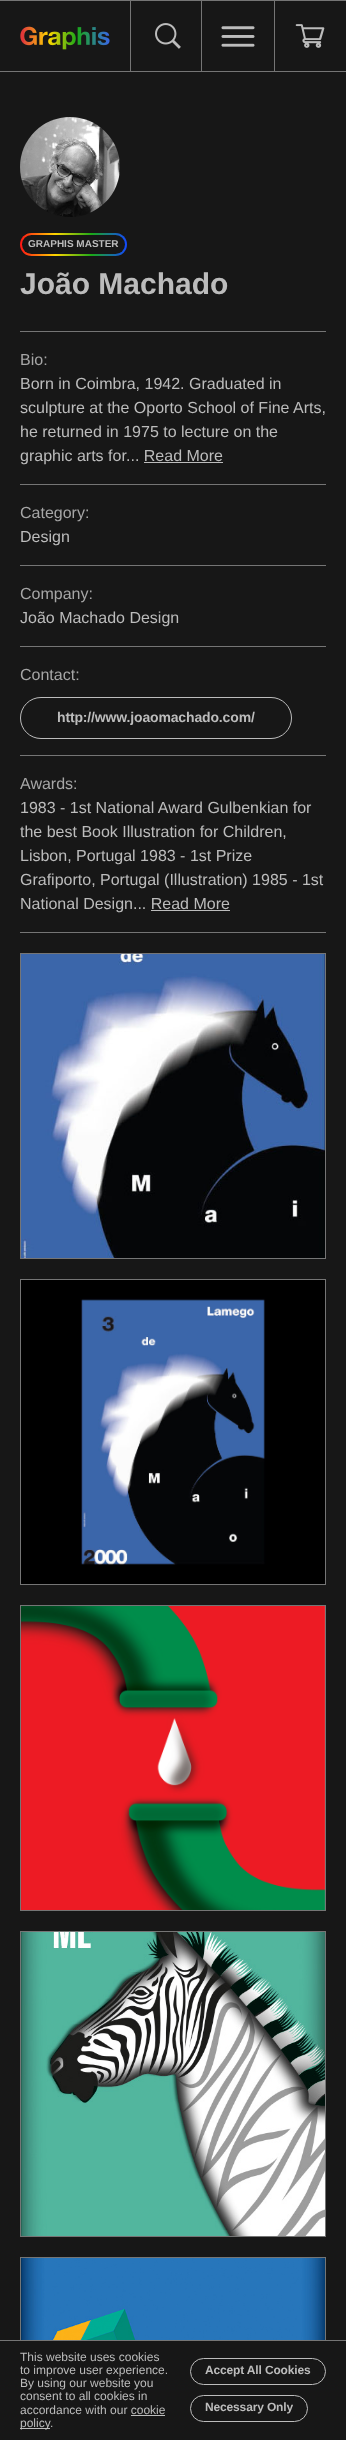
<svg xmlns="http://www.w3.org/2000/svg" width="346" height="2440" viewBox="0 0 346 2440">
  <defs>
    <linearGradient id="g1" gradientUnits="userSpaceOnUse" x1="20" y1="245" x2="127" y2="245"><stop offset="0" stop-color="rgb(255,20,20)"/><stop offset="0.33" stop-color="rgb(255,214,0)"/><stop offset="0.67" stop-color="rgb(26,169,23)"/><stop offset="1" stop-color="rgb(20,72,255)"/></linearGradient>
  </defs>
  <rect width="100%" height="100%" fill="rgb(23,23,23)"/>
  <rect x="0" y="0" width="346" height="1" fill="rgb(117,117,117)"/>
  <rect x="0" y="71" width="346" height="1" fill="rgb(117,117,117)"/>
  <image x="20" y="26" width="90" height="24" href="pic1.png"/>
  <rect x="201" y="1" width="1" height="70" fill="rgb(117,117,117)"/>
  <rect x="130" y="1" width="1" height="70" fill="rgb(117,117,117)"/>
  <image x="155" y="23" width="26" height="26" href="pic2.png"/>
  <image x="221" y="26" width="34" height="21" href="pic3.png"/>
  <rect x="274" y="1" width="1" height="70" fill="rgb(117,117,117)"/>
  <image x="295" y="24" width="30" height="24" href="pic4.png"/>
  <rect x="20" y="331" width="306" height="1" fill="rgb(117,117,117)"/>
  <image x="20" y="117" width="100" height="100" href="pic5.png"/>
  <rect x="20" y="233" width="107" height="23" rx="11.5" fill="url(#g1)"/>
  <rect x="22" y="235" width="103" height="19" rx="9.5" fill="rgb(23,23,23)"/>
  <text x="28" y="247" font-family="Liberation Sans" font-size="10" font-weight="bold" fill="rgb(188,188,188)">GRAPHIS MASTER</text>
  <text x="20" y="294" font-family="Liberation Sans" font-size="30" font-weight="bold" fill="rgb(188,188,188)">João Machado</text>
  <rect x="20" y="484" width="306" height="1" fill="rgb(117,117,117)"/>
  <text x="20" y="365" font-family="Liberation Sans" font-size="16" fill="rgb(166,166,166)">Bio:</text>
  <g font-family="Liberation Sans" font-size="16" fill="rgb(188,188,188)">
    <text>
      <tspan x="20" y="389">Born in Coimbra, 1942. Graduated in</tspan>
      <tspan x="20" y="413">sculpture at the Oporto School of Fine Arts,</tspan>
      <tspan x="20" y="437">he returned in 1975 to lecture on the</tspan>
      <tspan x="20" y="461">graphic arts for</tspan>
    </text>
    <text x="126" y="461">... Read More</text>
  </g>
  <rect x="144" y="462" width="79" height="1" fill="rgb(188,188,188)"/>
  <rect x="20" y="565" width="306" height="1" fill="rgb(117,117,117)"/>
  <text x="20" y="518" font-family="Liberation Sans" font-size="16" fill="rgb(166,166,166)">Category:</text>
  <text x="20" y="542" font-family="Liberation Sans" font-size="16" fill="rgb(188,188,188)">Design</text>
  <rect x="20" y="646" width="306" height="1" fill="rgb(117,117,117)"/>
  <text x="20" y="599" font-family="Liberation Sans" font-size="16" fill="rgb(166,166,166)">Company:</text>
  <text x="20" y="623" font-family="Liberation Sans" font-size="16" fill="rgb(188,188,188)">João Machado Design</text>
  <rect x="20" y="755" width="306" height="1" fill="rgb(117,117,117)"/>
  <text x="20" y="680" font-family="Liberation Sans" font-size="16" fill="rgb(166,166,166)">Contact:</text>
  <rect x="20.5" y="697.5" width="271" height="41" rx="20.5" fill="none" stroke="rgb(188,188,188)"/>
  <text x="57" y="722" font-family="Liberation Sans" font-size="14" font-weight="bold" letter-spacing="-0.15" fill="rgb(188,188,188)">http://www.joaomachado.com/</text>
  <rect x="20" y="932" width="306" height="1" fill="rgb(117,117,117)"/>
  <text x="20" y="789" font-family="Liberation Sans" font-size="16" fill="rgb(166,166,166)">Awards:</text>
  <g font-family="Liberation Sans" font-size="16" fill="rgb(188,188,188)">
    <text>
      <tspan x="20" y="813">1983 - 1st National Award Gulbenkian for</tspan>
      <tspan x="20" y="837">the best Book Illustration for Children,</tspan>
      <tspan x="20" y="861">Lisbon, Portugal 1983 - 1st Prize</tspan>
      <tspan x="20" y="885">Grafiporto, Portugal (Illustration) 1985 - 1st</tspan>
      <tspan x="20" y="909">National Design... Read More</tspan>
    </text>
  </g>
  <rect x="151" y="910" width="79" height="1" fill="rgb(188,188,188)"/>
  <rect x="20.5" y="953.5" width="305" height="305" fill="none" stroke="rgb(117,117,117)"/>
  <image x="21" y="954" width="304" height="304" href="pic6.png"/>
  <rect x="20.5" y="1279.5" width="305" height="305" fill="none" stroke="rgb(117,117,117)"/>
  <image x="21" y="1280" width="304" height="304" href="pic7.png"/>
  <rect x="20.5" y="1605.5" width="305" height="305" fill="none" stroke="rgb(117,117,117)"/>
  <image x="21" y="1606" width="304" height="304" href="pic8.png"/>
  <rect x="20.5" y="1931.5" width="305" height="305" fill="none" stroke="rgb(117,117,117)"/>
  <image x="21" y="1932" width="304" height="304" href="pic9.png"/>
  <rect x="20.5" y="2257.5" width="305" height="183" fill="none" stroke="rgb(117,117,117)"/>
  <image x="21" y="2258" width="304" height="82" href="pic10.png"/>
  <rect x="20" y="2341" width="306" height="99" fill="rgb(23,23,23)"/>
  <rect x="0" y="2340" width="346" height="1" fill="rgb(117,117,117)"/>
  <g font-family="Liberation Sans" font-size="12" fill="rgb(188,188,188)">
    <text>
      <tspan x="20" y="2361">This website uses cookies</tspan>
      <tspan x="20" y="2374">to improve user experience.</tspan>
      <tspan x="20" y="2387">By using our website you</tspan>
      <tspan x="20" y="2400">consent to all cookies in</tspan>
      <tspan x="20" y="2414">accordance with our cookie</tspan>
    </text>
  </g>
  <rect x="20" y="2428" width="30" height="1" fill="rgb(188,188,188)"/>
  <text x="20" y="2427" font-family="Liberation Sans" font-size="12" fill="rgb(188,188,188)">policy</text>
  <rect x="131" y="2415" width="34" height="1" fill="rgb(188,188,188)"/>
  <text x="50" y="2427" font-family="Liberation Sans" font-size="12" fill="rgb(188,188,188)">.</text>
  <rect x="190.5" y="2358.5" width="135" height="26" rx="13" fill="none" stroke="rgb(188,188,188)"/>
  <text x="205" y="2374" font-family="Liberation Sans" font-size="12" font-weight="bold" letter-spacing="-0.15" fill="rgb(188,188,188)">Accept All Cookies</text>
  <rect x="190.5" y="2395.5" width="117" height="26" rx="13" fill="none" stroke="rgb(188,188,188)"/>
  <text x="205" y="2411" font-family="Liberation Sans" font-size="12" font-weight="bold" letter-spacing="-0.15" fill="rgb(188,188,188)">Necessary Only</text>
</svg>
